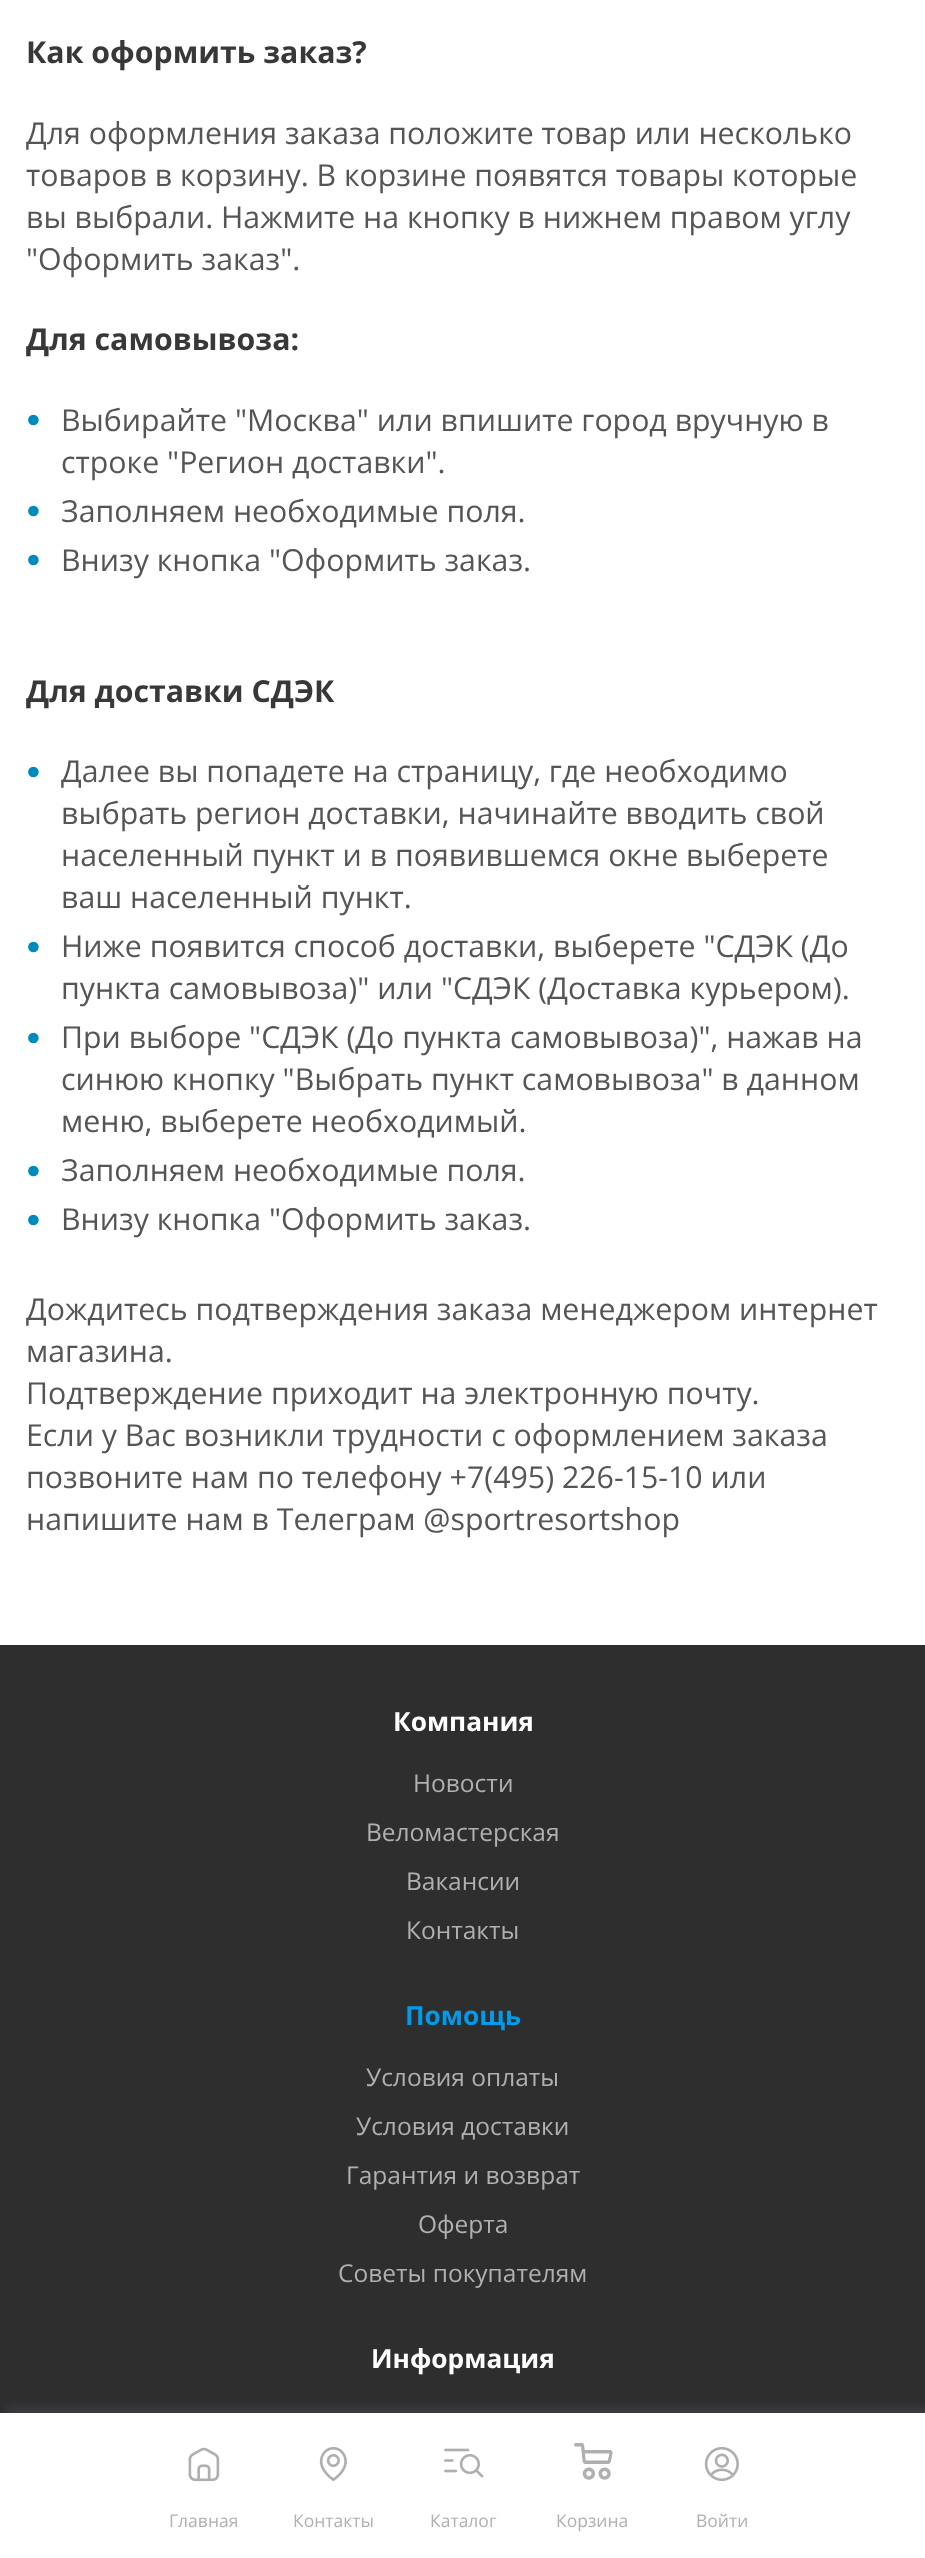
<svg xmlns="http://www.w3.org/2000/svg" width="925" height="2558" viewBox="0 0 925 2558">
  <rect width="100%" height="100%" fill="rgb(255,255,255)"/>
  <text x="26" y="63" font-family="Open Sans" font-size="30.3" font-weight="bold" fill="rgb(56,56,56)">Как оформить заказ?</text>
  <g font-family="Open Sans" font-size="30.3" fill="rgb(85,85,85)">
    <text>
      <tspan x="26" y="144">Для оформления заказа положите товар или несколько</tspan>
      <tspan x="26" y="186">товаров в корзину. В корзине появятся товары которые</tspan>
      <tspan x="26" y="228">вы выбрали. Нажмите на кнопку в нижнем правом углу</tspan>
      <tspan x="26" y="270">"Оформить заказ".</tspan>
    </text>
  </g>
  <text x="26" y="350" font-family="Open Sans" font-size="30.3" font-weight="bold" fill="rgb(56,56,56)">Для самовывоза:</text>
  <text x="26" y="427" font-family="Liberation Sans" font-size="24.5" fill="rgb(0,138,189)">●</text>
  <g font-family="Open Sans" font-size="30.3" fill="rgb(85,85,85)">
    <text>
      <tspan x="61" y="431">Выбирайте "Москва" или впишите город вручную в</tspan>
      <tspan x="61" y="473">строке "Регион доставки".</tspan>
    </text>
  </g>
  <text x="26" y="518" font-family="Liberation Sans" font-size="24.5" fill="rgb(0,138,189)">●</text>
  <text x="61" y="522" font-family="Open Sans" font-size="30.3" fill="rgb(85,85,85)">Заполняем необходимые поля.</text>
  <text x="26" y="567" font-family="Liberation Sans" font-size="24.5" fill="rgb(0,138,189)">●</text>
  <text x="61" y="571" font-family="Open Sans" font-size="30.3" fill="rgb(85,85,85)">Внизу кнопка "Оформить заказ.</text>
  <text x="26" y="702" font-family="Open Sans" font-size="30.3" font-weight="bold" fill="rgb(56,56,56)">Для доставки СДЭК</text>
  <text x="26" y="779" font-family="Liberation Sans" font-size="24.5" fill="rgb(0,138,189)">●</text>
  <g font-family="Open Sans" font-size="30.3" fill="rgb(85,85,85)">
    <text>
      <tspan x="61" y="782">Далее вы попадете на страницу, где необходимо</tspan>
      <tspan x="61" y="824">выбрать регион доставки, начинайте вводить свой</tspan>
      <tspan x="61" y="866">населенный пункт и в появившемся окне выберете</tspan>
      <tspan x="61" y="908">ваш населенный пункт.</tspan>
    </text>
  </g>
  <text x="26" y="954" font-family="Liberation Sans" font-size="24.5" fill="rgb(0,138,189)">●</text>
  <g font-family="Open Sans" font-size="30.3" fill="rgb(85,85,85)">
    <text>
      <tspan x="61" y="957">Ниже появится способ доставки, выберете "СДЭК (До</tspan>
      <tspan x="61" y="999">пункта самовывоза)" или "СДЭК (Доставка курьером).</tspan>
    </text>
  </g>
  <text x="26" y="1045" font-family="Liberation Sans" font-size="24.5" fill="rgb(0,138,189)">●</text>
  <g font-family="Open Sans" font-size="30.3" fill="rgb(85,85,85)">
    <text>
      <tspan x="61" y="1048">При выборе "СДЭК (До пункта самовывоза)", нажав на</tspan>
      <tspan x="61" y="1090">синюю кнопку "Выбрать пункт самовывоза" в данном</tspan>
      <tspan x="61" y="1132">меню, выберете необходимый.</tspan>
    </text>
  </g>
  <text x="26" y="1178" font-family="Liberation Sans" font-size="24.5" fill="rgb(0,138,189)">●</text>
  <text x="61" y="1181" font-family="Open Sans" font-size="30.3" fill="rgb(85,85,85)">Заполняем необходимые поля.</text>
  <text x="26" y="1227" font-family="Liberation Sans" font-size="24.5" fill="rgb(0,138,189)">●</text>
  <g font-family="Open Sans" font-size="30.3" fill="rgb(85,85,85)">
    <text x="61" y="1230">Внизу кнопка "Оформить заказ.</text>
    <text>
      <tspan x="26" y="1320">Дождитесь подтверждения заказа менеджером интернет</tspan>
      <tspan x="26" y="1362">магазина.</tspan>
      <tspan x="26" y="1404">Подтверждение приходит на электронную почту.</tspan>
      <tspan x="26" y="1446">Если у Вас возникли трудности с оформлением заказа</tspan>
      <tspan x="26" y="1488">позвоните нам по телефону +7(495) 226-15-10 или</tspan>
      <tspan x="26" y="1530">напишите нам в Телеграм @sportresortshop</tspan>
    </text>
  </g>
  <rect x="0" y="1645" width="925" height="768" fill="rgb(46,46,47)"/>
  <text x="393" y="1731" font-family="Open Sans" font-size="26.25" font-weight="bold" fill="rgb(255,255,255)">Компания</text>
  <g font-family="Open Sans" font-size="24.5" fill="rgb(176,176,176)">
    <text x="413" y="1792">Новости</text>
    <text x="366" y="1841">Веломастерская</text>
    <text x="406" y="1890">Вакансии</text>
    <text x="406" y="1939">Контакты</text>
  </g>
  <text x="405" y="2025" font-family="Open Sans" font-size="26.25" font-weight="bold" fill="rgb(0,156,235)">Помощь</text>
  <g font-family="Open Sans" font-size="24.5" fill="rgb(176,176,176)">
    <text x="366" y="2086">Условия оплаты</text>
    <text x="356" y="2135">Условия доставки</text>
    <text x="346" y="2184">Гарантия и возврат</text>
    <text x="418" y="2233">Оферта</text>
    <text x="338" y="2282">Советы покупателям</text>
  </g>
  <text x="371" y="2368" font-family="Open Sans" font-size="26.25" font-weight="bold" fill="rgb(255,255,255)">Информация</text>
  <rect x="7" y="2408" width="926" height="145" fill="rgba(169,151,191,0.15)" filter="blur(5px)"/>
  <rect x="2" y="2413" width="923" height="145" fill="rgb(255,255,255)"/>
  <image x="188" y="2447" width="32" height="35" href="pic1.png"/>
  <text x="169" y="2527" font-family="Open Sans" font-size="17.5" fill="rgb(176,176,176)">Главная</text>
  <image x="319" y="2447" width="28" height="34" href="pic2.png"/>
  <text x="293" y="2527" font-family="Open Sans" font-size="17.5" fill="rgb(176,176,176)">Контакты</text>
  <image x="444" y="2448" width="40" height="30" href="pic3.png"/>
  <text x="430" y="2527" font-family="Open Sans" font-size="17.5" fill="rgb(176,176,176)">Каталог</text>
  <image x="574" y="2443" width="39" height="37" href="pic4.png"/>
  <text x="556" y="2527" font-family="Open Sans" font-size="17.5" fill="rgb(176,176,176)">Корзина</text>
  <image x="704" y="2447" width="35" height="34" href="pic5.png"/>
  <text x="696" y="2527" font-family="Open Sans" font-size="17.5" fill="rgb(176,176,176)">Войти</text>
</svg>
